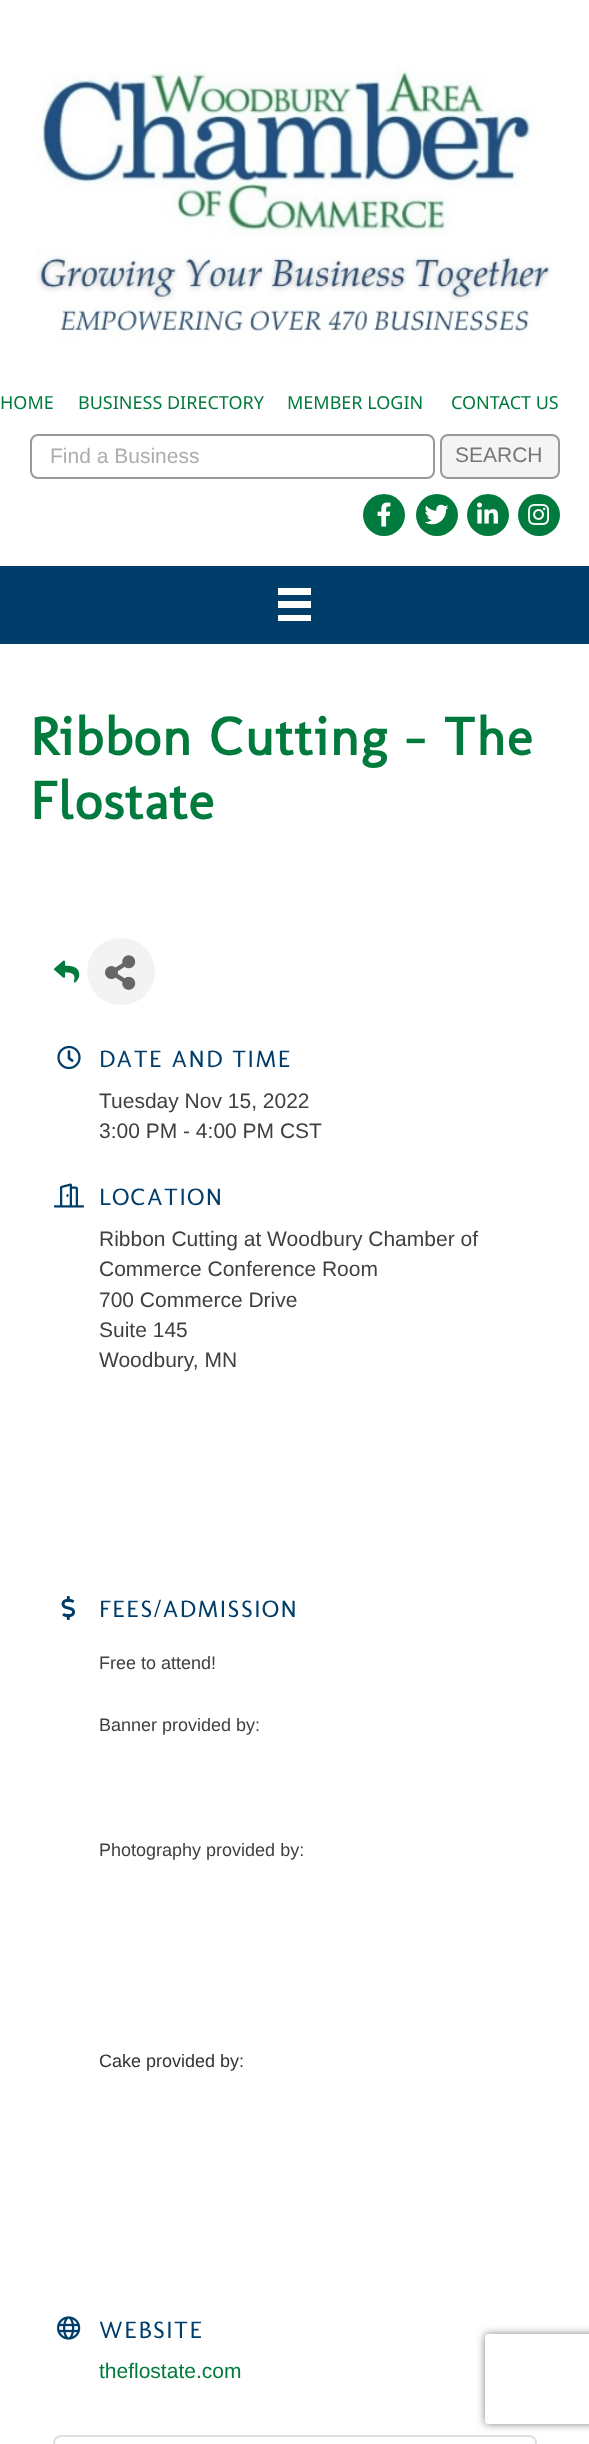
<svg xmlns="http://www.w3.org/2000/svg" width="589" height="2444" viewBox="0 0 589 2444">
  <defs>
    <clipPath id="clip1"><path d="M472 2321H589V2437H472ZM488 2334H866C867.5 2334 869 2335.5 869 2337V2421C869 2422.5 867.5 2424 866 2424H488C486.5 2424 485 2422.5 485 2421V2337C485 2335.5 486.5 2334 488 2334Z" clip-rule="evenodd"/></clipPath>
  </defs>
  <rect width="100%" height="100%" fill="rgb(255,255,255)"/>
  <image x="36" y="65" width="517" height="276" href="pic1.png"/>
  <g font-family="Noto Sans" font-size="18" fill="rgb(0,122,61)">
    <text x="0" y="409">HOME</text>
    <text x="78" y="409">BUSINESS DIRECTORY</text>
    <text x="287" y="409">MEMBER LOGIN</text>
    <text x="451" y="409">CONTACT US</text>
  </g>
  <rect x="31" y="435" width="403" height="43" rx="7" fill="none" stroke="rgb(153,153,153)" stroke-width="2"/>
  <text x="50" y="463" font-family="Liberation Sans" font-size="21" fill="rgb(173,173,173)">Find a Business</text>
  <rect x="441" y="435" width="118" height="43" rx="7" fill="rgb(244,244,244)" stroke="rgb(153,153,153)" stroke-width="2"/>
  <text x="455" y="462" font-family="Liberation Sans" font-size="21" fill="rgb(119,119,119)">SEARCH</text>
  <circle cx="384" cy="515" r="21" fill="rgb(0,122,61)"/>
  <image x="377" y="502" width="14" height="25" href="pic2.png"/>
  <circle cx="437" cy="515" r="21" fill="rgb(0,122,61)"/>
  <image x="424" y="504" width="25" height="21" href="pic3.png"/>
  <circle cx="488" cy="515" r="21" fill="rgb(0,122,61)"/>
  <image x="477" y="502" width="21" height="22" href="pic4.png"/>
  <circle cx="539" cy="515" r="21" fill="rgb(0,122,61)"/>
  <image x="528" y="504" width="22" height="21" href="pic5.png"/>
  <rect x="0" y="566" width="589" height="78" fill="rgb(0,61,107)"/>
  <rect x="278" y="588" width="33" height="7" fill="rgb(255,255,255)"/>
  <rect x="278" y="601" width="33" height="7" fill="rgb(255,255,255)"/>
  <rect x="278" y="615" width="33" height="6" fill="rgb(255,255,255)"/>
  <g font-family="Molengo" font-size="54" font-weight="bold" letter-spacing="1.5" fill="rgb(0,122,61)">
    <text>
      <tspan x="30" y="755">Ribbon Cutting - The</tspan>
      <tspan x="30" y="819">Flostate</tspan>
    </text>
  </g>
  <image x="54" y="960" width="26" height="23" href="pic6.png"/>
  <rect x="87" y="938" width="68" height="67" rx="33.5" fill="rgb(243,243,243)"/>
  <image x="105" y="955" width="31" height="35" href="pic7.png"/>
  <image x="57" y="1045" width="24" height="25" href="pic8.png"/>
  <text x="99" y="1067" font-family="Molengo" font-size="24" letter-spacing="1.5" fill="rgb(0,61,107)">DATE AND TIME</text>
  <g font-family="Liberation Sans" font-size="21" fill="rgb(63,63,63)">
    <text>
      <tspan x="99" y="1108">Tuesday Nov 15, 2022</tspan>
      <tspan x="99" y="1138">3:00 PM - 4:00 PM CST</tspan>
    </text>
  </g>
  <image x="54" y="1183" width="30" height="25" href="pic9.png"/>
  <text x="99" y="1205" font-family="Molengo" font-size="24" letter-spacing="1.5" fill="rgb(0,61,107)">LOCATION</text>
  <g font-family="Liberation Sans" font-size="21" fill="rgb(63,63,63)">
    <text>
      <tspan x="99" y="1246">Ribbon Cutting at Woodbury Chamber of</tspan>
      <tspan x="99" y="1276">Commerce Conference Room</tspan>
      <tspan x="99" y="1307">700 Commerce Drive</tspan>
      <tspan x="99" y="1337">Suite 145</tspan>
      <tspan x="99" y="1367">Woodbury, MN</tspan>
    </text>
  </g>
  <image x="61" y="1596" width="14" height="24" href="pic10.png"/>
  <text x="99" y="1617" font-family="Molengo" font-size="24" letter-spacing="1.5" fill="rgb(0,61,107)">FEES/ADMISSION</text>
  <g font-family="Liberation Sans" font-size="18" fill="rgb(63,63,63)">
    <text x="99" y="1669">Free to attend!</text>
    <text x="99" y="1731">Banner provided by:</text>
    <text x="99" y="1856">Photography provided by:</text>
  </g>
  <text x="99" y="2067" font-family="Liberation Sans" font-size="18" fill="rgb(51,51,51)">Cake provided by:</text>
  <image x="57" y="2316" width="24" height="24" href="pic11.png"/>
  <text x="99" y="2338" font-family="Molengo" font-size="24" letter-spacing="1.5" fill="rgb(0,61,107)">WEBSITE</text>
  <text x="99" y="2378" font-family="Liberation Sans" font-size="21" fill="rgb(0,122,61)">theflostate.com</text>
  <rect x="54" y="2436" width="482" height="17" rx="7" fill="none" stroke="rgb(223,223,223)" stroke-width="2"/>
  <g clip-path="url(#clip1)">
    <rect x="485" y="2334" width="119" height="90" rx="3" fill="rgb(128,128,128)" filter="blur(4px)"/>
  </g>
</svg>
